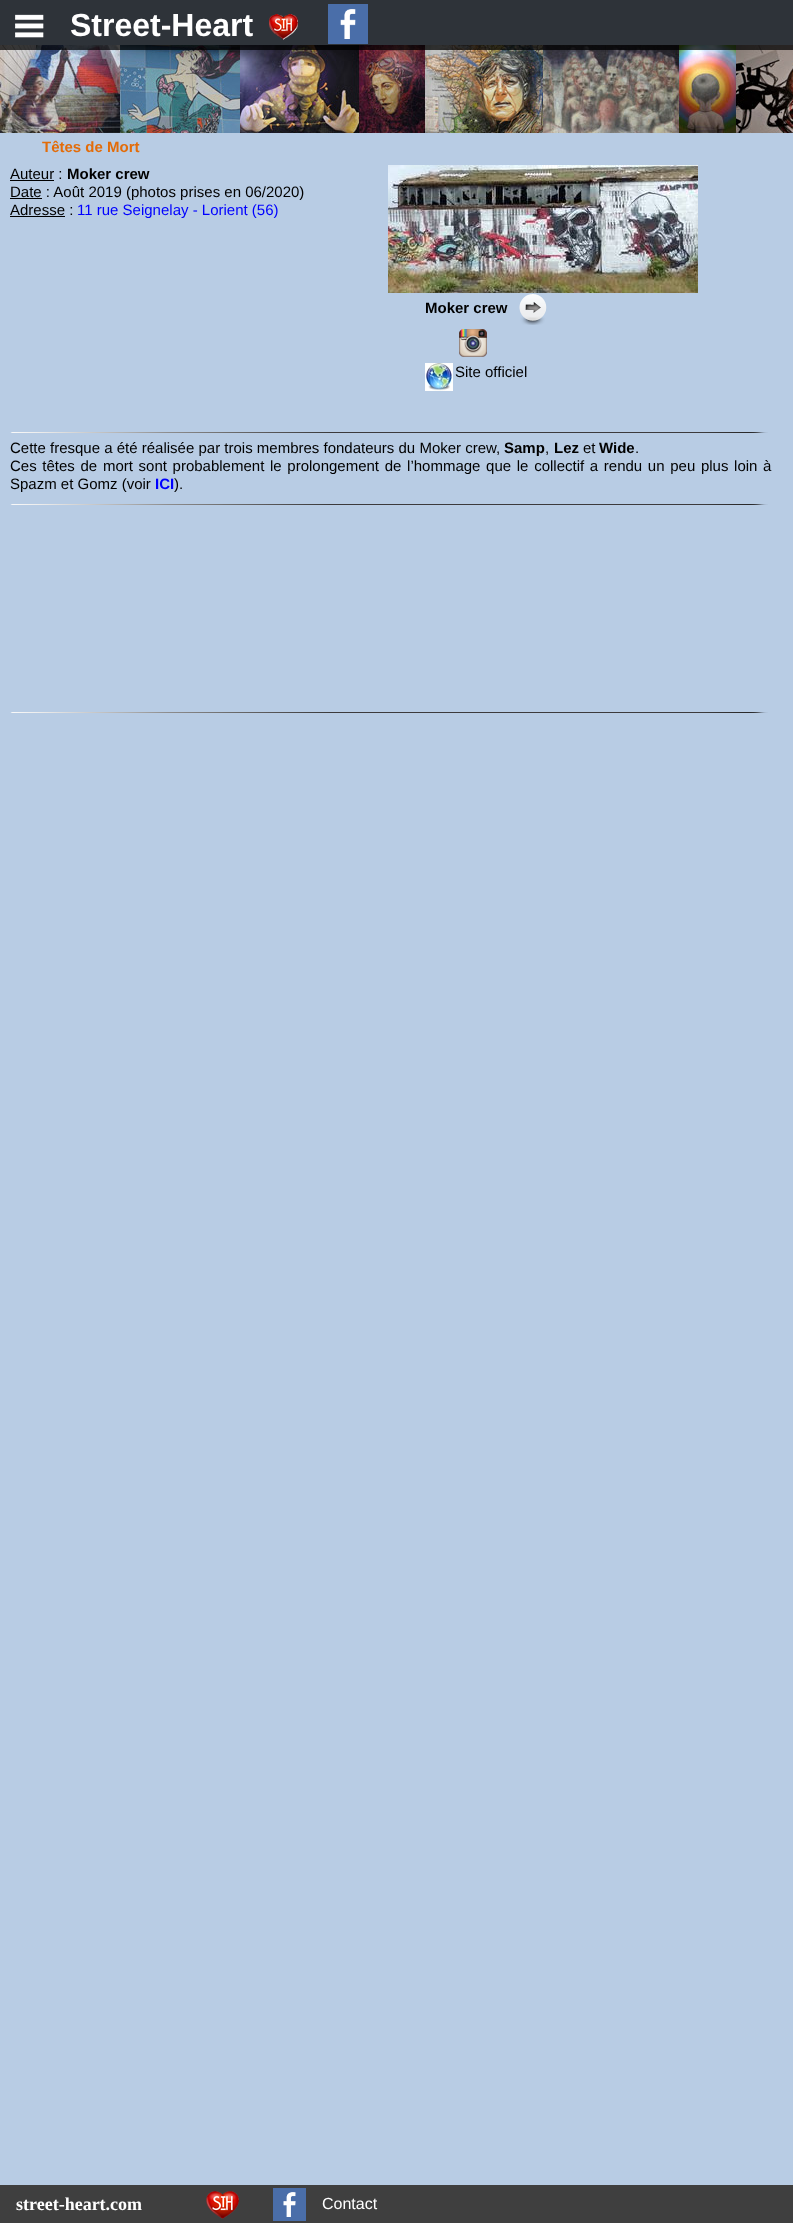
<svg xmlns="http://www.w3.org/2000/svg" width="793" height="2223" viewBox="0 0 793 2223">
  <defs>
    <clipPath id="clip1"><rect x="42" y="138" width="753" height="20"/></clipPath>
  </defs>
  <rect width="100%" height="100%" fill="rgb(184,204,228)"/>
  <image x="0" y="45" width="793" height="88" href="pic4.png"/>
  <rect x="0" y="0" width="793" height="50" fill="rgba(0,0,0,0.75)"/>
  <image x="15" y="14" width="29" height="24" href="pic1.png"/>
  <text x="70" y="36" font-family="Liberation Sans" font-size="32" font-weight="bold" fill="rgb(255,255,255)">Street-Heart</text>
  <image x="269" y="14" width="29" height="26" href="pic2.png"/>
  <image x="328" y="4" width="40" height="40" href="pic3.png"/>
  <g clip-path="url(#clip1)">
    <text x="42" y="152" font-family="Liberation Sans" font-size="15" font-weight="bold" fill="rgb(227,108,9)">Têtes de Mort</text>
  </g>
  <text x="10" y="179" font-family="Liberation Sans" font-size="15" fill="rgb(0,0,0)">Auteur :</text>
  <rect x="10" y="180" width="44" height="1" fill="rgb(0,0,0)"/>
  <text x="67" y="179" font-family="Liberation Sans" font-size="15" font-weight="bold" fill="rgb(0,0,0)">Moker crew</text>
  <rect x="10" y="198" width="32" height="1" fill="rgb(0,0,0)"/>
  <g font-family="Liberation Sans" font-size="15" fill="rgb(0,0,0)">
    <text>
      <tspan x="10" y="197">Date : Août 2019 (photos prises en 06/2020)</tspan>
      <tspan x="10" y="215">Adresse :</tspan>
    </text>
  </g>
  <rect x="10" y="216" width="55" height="1" fill="rgb(0,0,0)"/>
  <text x="77" y="215" font-family="Liberation Sans" font-size="15" fill="rgb(0,0,255)">11 rue Seignelay - Lorient (56)</text>
  <image x="388" y="165" width="310" height="128" href="pic5.png"/>
  <text x="425" y="313" font-family="Liberation Sans" font-size="15" font-weight="bold" fill="rgb(0,0,0)">Moker crew</text>
  <image x="519" y="294" width="28" height="31" href="pic6.png"/>
  <image x="459" y="329" width="28" height="28" href="pic7.png"/>
  <image x="425" y="363" width="28" height="28" href="pic8.png"/>
  <text x="455" y="377" font-family="Liberation Sans" font-size="15" fill="rgb(0,0,0)">Site officiel</text>
  <image x="10" y="432" width="319" height="1" href="pic9.png"/>
  <rect x="329" y="432" width="375" height="1" fill="rgb(60,58,60)"/>
  <image x="704" y="432" width="64" height="1" href="pic10.png"/>
  <text x="10" y="453" font-family="Liberation Sans" font-size="15" fill="rgb(0,0,0)">Cette fresque a été réalisée par trois membres fondateurs du Moker crew,</text>
  <text x="504" y="453" font-family="Liberation Sans" font-size="15" font-weight="bold" fill="rgb(0,0,0)">Samp</text>
  <text x="545" y="453" font-family="Liberation Sans" font-size="15" fill="rgb(0,0,0)">,</text>
  <text x="554" y="453" font-family="Liberation Sans" font-size="15" font-weight="bold" fill="rgb(0,0,0)">Lez</text>
  <text x="583" y="453" font-family="Liberation Sans" font-size="15" fill="rgb(0,0,0)">et</text>
  <text x="599" y="453" font-family="Liberation Sans" font-size="15" font-weight="bold" fill="rgb(0,0,0)">Wide</text>
  <g font-family="Liberation Sans" font-size="15" fill="rgb(0,0,0)">
    <text x="635" y="453">.</text>
    <text>
      <tspan x="10" y="471" word-spacing="1.5">Ces têtes de mort sont probablement le prolongement de l’hommage que le collectif a rendu un peu plus loin à</tspan>
      <tspan x="10" y="489">Spazm et Gomz (voir</tspan>
    </text>
  </g>
  <text x="155" y="489" font-family="Liberation Sans" font-size="15" font-weight="bold" fill="rgb(0,0,255)">ICI</text>
  <text x="174" y="489" font-family="Liberation Sans" font-size="15" fill="rgb(0,0,0)">).</text>
  <image x="10" y="504" width="319" height="1" href="pic9.png"/>
  <rect x="329" y="504" width="375" height="1" fill="rgb(60,58,60)"/>
  <image x="704" y="504" width="64" height="1" href="pic10.png"/>
  <image x="10" y="712" width="319" height="1" href="pic9.png"/>
  <rect x="329" y="712" width="375" height="1" fill="rgb(60,58,60)"/>
  <image x="704" y="712" width="64" height="1" href="pic10.png"/>
  <rect x="0" y="2185" width="793" height="38" fill="rgb(63,63,63)"/>
  <text x="16" y="2210" font-family="Liberation Serif" font-size="18" font-weight="bold" fill="rgb(255,255,255)">street-heart.com</text>
  <image x="206" y="2191" width="33" height="28" href="pic11.png"/>
  <image x="273" y="2188" width="33" height="33" href="pic12.png"/>
  <text x="322" y="2209" font-family="Liberation Sans" font-size="16" fill="rgb(255,255,255)">Contact</text>
</svg>
